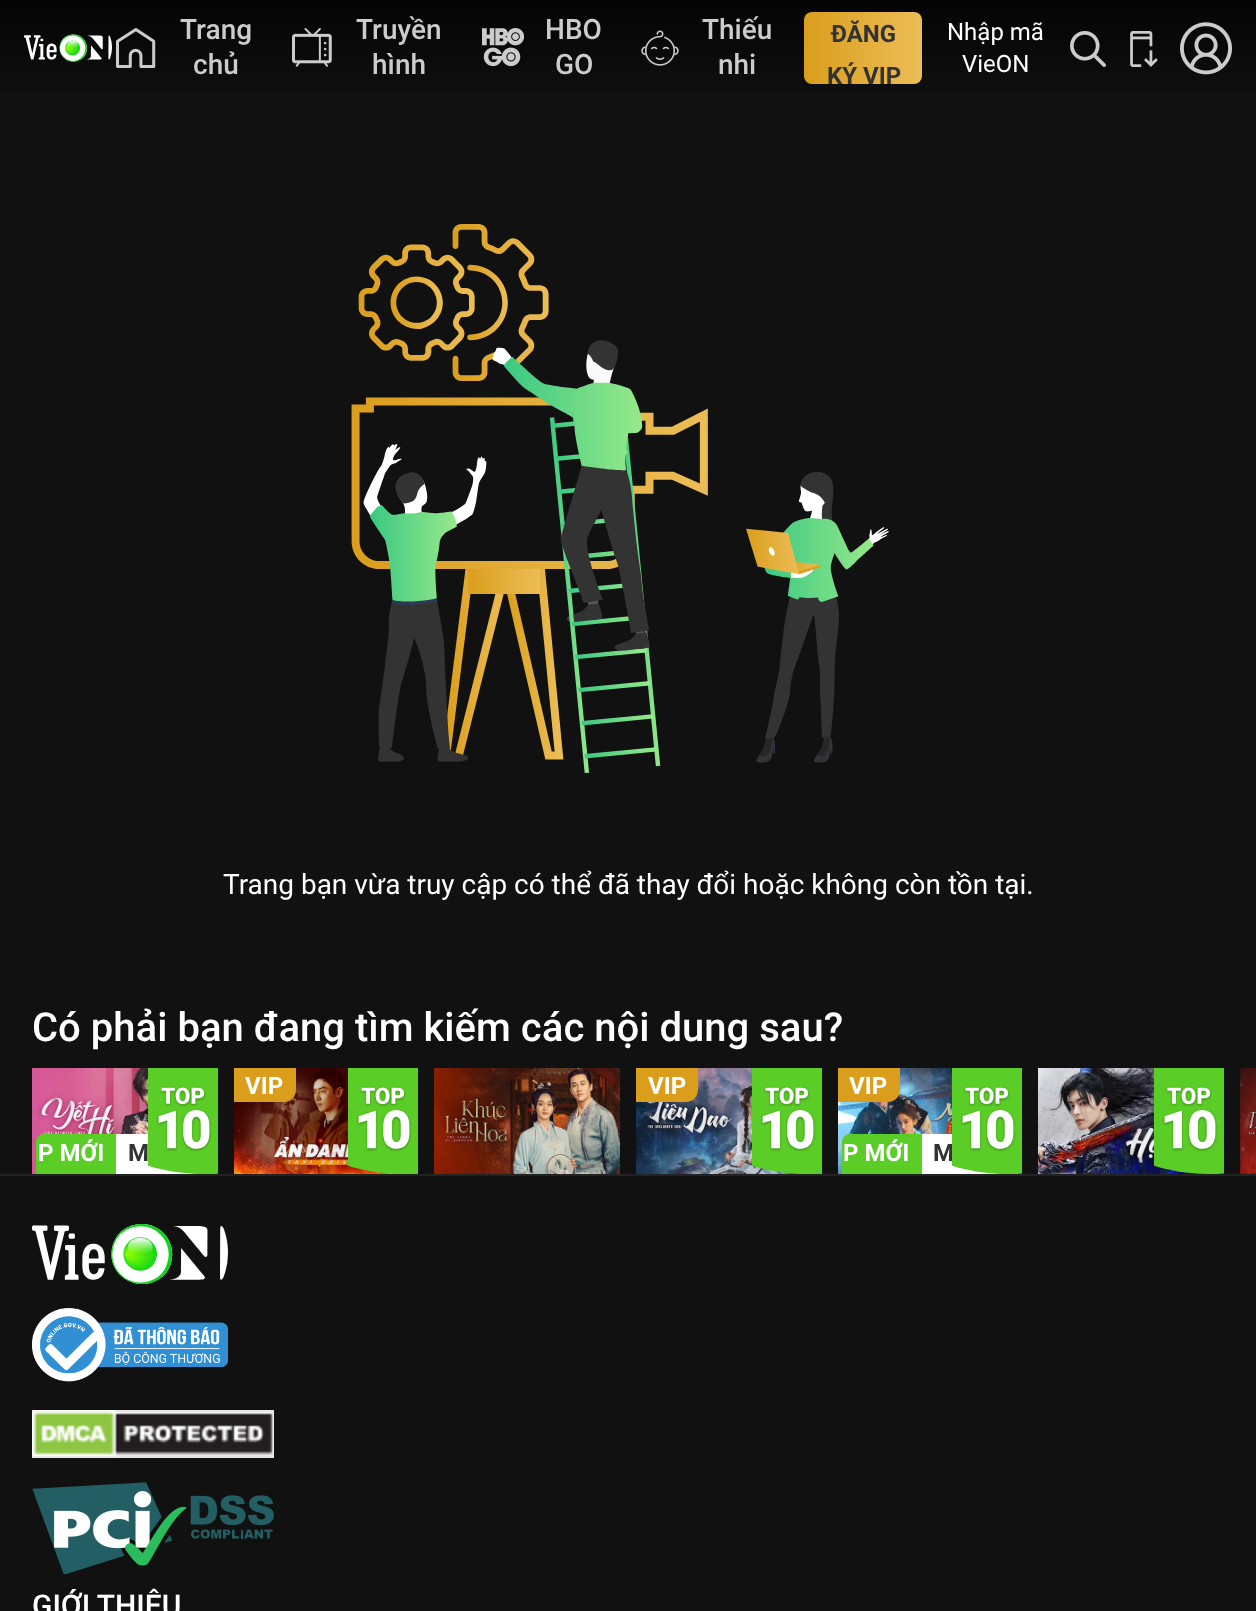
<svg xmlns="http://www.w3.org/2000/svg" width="1256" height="1611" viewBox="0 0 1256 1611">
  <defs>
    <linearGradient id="g1" gradientUnits="userSpaceOnUse" x1="628" y1="112" x2="628" y2="0"><stop offset="0" stop-color="rgb(17,17,17)"/><stop offset="1" stop-color="rgb(4,4,4)"/></linearGradient>
    <linearGradient id="g2" gradientUnits="userSpaceOnUse" x1="804" y1="48" x2="922" y2="48"><stop offset="0" stop-color="rgb(218,158,28)"/><stop offset="1" stop-color="rgb(236,189,87)"/></linearGradient>
  </defs>
  <rect width="100%" height="100%" fill="rgb(17,17,17)"/>
  <rect x="0" y="0" width="1256" height="90" fill="url(#g1)"/>
  <image x="24" y="34" width="88" height="28" href="pic1.png"/>
  <image x="116" y="28" width="40" height="40" href="pic2.png"/>
  <g font-family="Roboto" font-size="28" font-weight="500" fill="rgb(204,204,204)">
    <text x="180" y="39">Trang</text>
    <text x="193" y="74">chủ</text>
  </g>
  <image x="292" y="28" width="40" height="39" href="pic3.png"/>
  <g font-family="Roboto" font-size="28" font-weight="500" fill="rgb(204,204,204)">
    <text x="356" y="39">Truyền</text>
    <text x="372" y="74">hình</text>
  </g>
  <image x="482" y="28" width="42" height="39" href="pic4.png"/>
  <g font-family="Roboto" font-size="28" font-weight="500" fill="rgb(204,204,204)">
    <text x="545" y="39">HBO</text>
    <text x="555" y="74">GO</text>
  </g>
  <image x="641" y="30" width="38" height="36" href="pic5.png"/>
  <g font-family="Roboto" font-size="28" font-weight="500" fill="rgb(204,204,204)">
    <text x="702" y="39">Thiếu</text>
    <text x="718" y="74">nhi</text>
  </g>
  <rect x="804" y="12" width="118" height="72" rx="8" fill="url(#g2)"/>
  <g font-family="Roboto" font-size="24" font-weight="bold" fill="rgb(51,51,51)">
    <text x="831" y="42">ĐĂNG</text>
    <text x="827" y="84">KÝ VIP</text>
  </g>
  <g font-family="Roboto" font-size="24" fill="rgb(255,255,255)">
    <text x="947" y="40">Nhập mã</text>
    <text x="962" y="72">VieON</text>
  </g>
  <image x="1070" y="31" width="36" height="36" href="pic6.png"/>
  <image x="1130" y="31" width="28" height="36" href="pic7.png"/>
  <image x="1180" y="22" width="52" height="53" href="pic8.png"/>
  <image x="351" y="224" width="538" height="549" href="pic9.png"/>
  <text x="223" y="894" font-family="Roboto" font-size="28" fill="rgb(255,255,255)">Trang bạn vừa truy cập có thể đã thay đổi hoặc không còn tồn tại.</text>
  <text x="32" y="1041" font-family="Roboto" font-size="40" font-weight="500" fill="rgb(255,255,255)">Có phải bạn đang tìm kiếm các nội dung sau?</text>
  <image x="32" y="1068" width="186" height="106" href="pic10.png"/>
  <rect x="116" y="1134" width="96" height="40" fill="rgb(255,255,255)"/>
  <image x="148" y="1068" width="70" height="106" href="pic11.png"/>
  <path d="M44 1134H116V1174H36V1142C36 1137.5 39.5 1134 44 1134Z" fill="rgb(91,205,39)"/>
  <text x="38" y="1161" font-family="Roboto" font-size="24" font-weight="bold" fill="rgb(255,255,255)">P MỚI</text>
  <text x="128" y="1161" font-family="Roboto" font-size="24" font-weight="bold" fill="rgb(51,51,51)">M</text>
  <image x="234" y="1068" width="184" height="106" href="pic12.png"/>
  <path d="M234 1068H296V1090C296 1096.5 290.5 1102 284 1102H234Z" fill="rgb(218,158,28)"/>
  <text x="245" y="1094" font-family="Roboto" font-size="24" font-weight="bold" fill="rgb(255,255,255)">VIP</text>
  <image x="348" y="1068" width="70" height="106" href="pic13.png"/>
  <image x="434" y="1068" width="186" height="106" href="pic14.png"/>
  <image x="636" y="1068" width="186" height="106" href="pic15.png"/>
  <path d="M636 1068H698V1090C698 1096.5 692.5 1102 686 1102H636Z" fill="rgb(218,158,28)"/>
  <text x="648" y="1094" font-family="Roboto" font-size="24" font-weight="bold" fill="rgb(255,255,255)">VIP</text>
  <image x="752" y="1068" width="70" height="106" href="pic16.png"/>
  <image x="838" y="1068" width="184" height="106" href="pic17.png"/>
  <path d="M838 1068H900V1090C900 1096.5 894.5 1102 888 1102H838Z" fill="rgb(218,158,28)"/>
  <text x="849" y="1094" font-family="Roboto" font-size="24" font-weight="bold" fill="rgb(255,255,255)">VIP</text>
  <rect x="922" y="1134" width="96" height="40" fill="rgb(255,255,255)"/>
  <text x="933" y="1161" font-family="Roboto" font-size="24" font-weight="bold" fill="rgb(51,51,51)">M</text>
  <image x="952" y="1068" width="70" height="106" href="pic18.png"/>
  <path d="M850 1134H922V1174H842V1142C842 1137.5 845.5 1134 850 1134Z" fill="rgb(91,205,39)"/>
  <text x="843" y="1161" font-family="Roboto" font-size="24" font-weight="bold" fill="rgb(255,255,255)">P MỚI</text>
  <image x="1038" y="1068" width="186" height="106" href="pic19.png"/>
  <image x="1154" y="1068" width="70" height="106" href="pic20.png"/>
  <image x="1240" y="1068" width="16" height="106" href="pic21.png"/>
  <rect x="0" y="1174" width="1256" height="2" fill="rgb(34,34,34)"/>
  <image x="32" y="1224" width="196" height="60" href="pic22.png"/>
  <image x="32" y="1308" width="196" height="74" href="pic23.png"/>
  <rect x="32" y="1410" width="242" height="48" fill="rgb(230,230,230)"/>
  <image x="32" y="1410" width="242" height="47" href="pic24.png"/>
  <image x="32" y="1482" width="242" height="92" href="pic25.png"/>
  <text x="32" y="1616" font-family="Roboto" font-size="30" font-weight="500" fill="rgb(255,255,255)">GIỚI THIỆU</text>
</svg>
